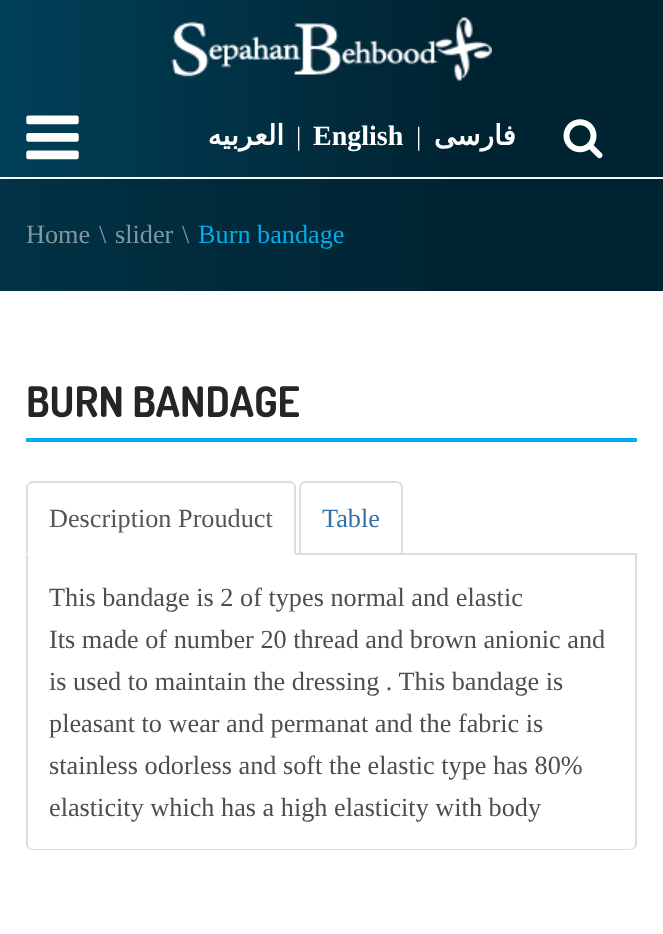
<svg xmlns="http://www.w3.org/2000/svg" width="663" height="934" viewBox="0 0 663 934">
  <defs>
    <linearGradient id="g1" gradientUnits="userSpaceOnUse" x1="0" y1="88" x2="663" y2="88"><stop offset="0" stop-color="rgb(0,64,89)"/><stop offset="0.7" stop-color="rgb(0,35,49)"/><stop offset="1" stop-color="rgb(0,35,49)"/></linearGradient>
    <linearGradient id="g2" gradientUnits="userSpaceOnUse" x1="0" y1="235" x2="663" y2="235"><stop offset="0" stop-color="rgb(1,50,69)"/><stop offset="0.7" stop-color="rgb(0,35,49)"/><stop offset="1" stop-color="rgb(0,35,49)"/></linearGradient>
  </defs>
  <rect width="100%" height="100%" fill="rgb(255,255,255)"/>
  <rect x="0" y="0" width="663" height="177" fill="url(#g1)"/>
  <image x="171" y="17" width="321" height="64" href="pic1.png"/>
  <image x="26" y="115" width="53" height="45" href="pic2.png"/>
  <text x="284" y="145" font-family="DejaVu Sans" font-size="28" font-weight="bold" direction="rtl" fill="rgb(255,255,255)">العربیه</text>
  <text x="296" y="145" font-family="Liberation Serif" font-size="26.25" fill="rgb(255,255,255)">|</text>
  <text x="313" y="145" font-family="Liberation Serif" font-size="28" font-weight="bold" fill="rgb(255,255,255)">English</text>
  <text x="416" y="145" font-family="Liberation Serif" font-size="26.25" fill="rgb(255,255,255)">|</text>
  <text x="516" y="145" font-family="DejaVu Sans" font-size="28" font-weight="bold" direction="rtl" fill="rgb(255,255,255)">فارسی</text>
  <image x="563" y="119" width="40" height="40" href="pic3.png"/>
  <rect x="0" y="179" width="663" height="112" fill="url(#g2)"/>
  <rect x="0" y="177" width="663" height="2" fill="rgb(247,247,247)"/>
  <g font-family="Liberation Serif" font-size="26.25" fill="rgb(128,152,161)">
    <text x="26" y="243">Home</text>
    <text x="99" y="243">\</text>
    <text x="115" y="243">slider</text>
    <text x="182" y="243">\</text>
  </g>
  <text x="198" y="243" font-family="Liberation Serif" font-size="26.25" fill="rgb(0,174,239)">Burn bandage</text>
  <rect x="26" y="438" width="611" height="4" fill="rgb(1,174,239)"/>
  <text x="26" y="417" font-family="Dosis" font-size="42" font-weight="bold" fill="rgb(37,37,37)">BURN BANDAGE</text>
  <rect x="296" y="553" width="341" height="2" fill="rgb(221,221,221)"/>
  <path d="M33 483C32 483 30 484 29 484L28 483L31 481H291L294 483L293 484C292 484 290 483 289 483Z" fill="rgb(221,221,221)"/>
  <path d="M294 483L296 486V555L294 553V488C294 486 294 485 293 484Z" fill="rgb(221,221,221)"/>
  <path d="M26 555V486L28 483L29 484C28 485 28 486 28 488V553Z" fill="rgb(221,221,221)"/>
  <text x="49" y="527" font-family="Liberation Serif" font-size="26.25" fill="rgb(85,85,85)">Description Prouduct</text>
  <path d="M306 482H396C399.5 482 402 484.5 402 488V554H300V488C300 484.5 302.5 482 306 482Z" fill="none" stroke="rgb(221,221,221)" stroke-width="2"/>
  <text x="322" y="527" font-family="Liberation Serif" font-size="26.25" fill="rgb(48,113,169)">Table</text>
  <path d="M26 555H637V844C637 847 634 850 630 850H33C29 850 26 847 26 844ZM28 555H635V844C635 846 633 849 630 849H33C30 849 28 846 28 844Z" fill="rgb(221,221,221)" fill-rule="evenodd"/>
  <g font-family="Liberation Serif" font-size="26.25" fill="rgb(79,78,78)">
    <text>
      <tspan x="49" y="606">This bandage is 2 of types normal and elastic</tspan>
      <tspan x="49" y="648">Its made of number 20 thread and brown anionic and</tspan>
      <tspan x="49" y="690">is used to maintain the dressing . This bandage is</tspan>
      <tspan x="49" y="732">pleasant to wear and permanat and the fabric is</tspan>
      <tspan x="49" y="774">stainless odorless and soft the elastic type has 80%</tspan>
      <tspan x="49" y="816">elasticity which has a high elasticity with body</tspan>
    </text>
  </g>
</svg>
